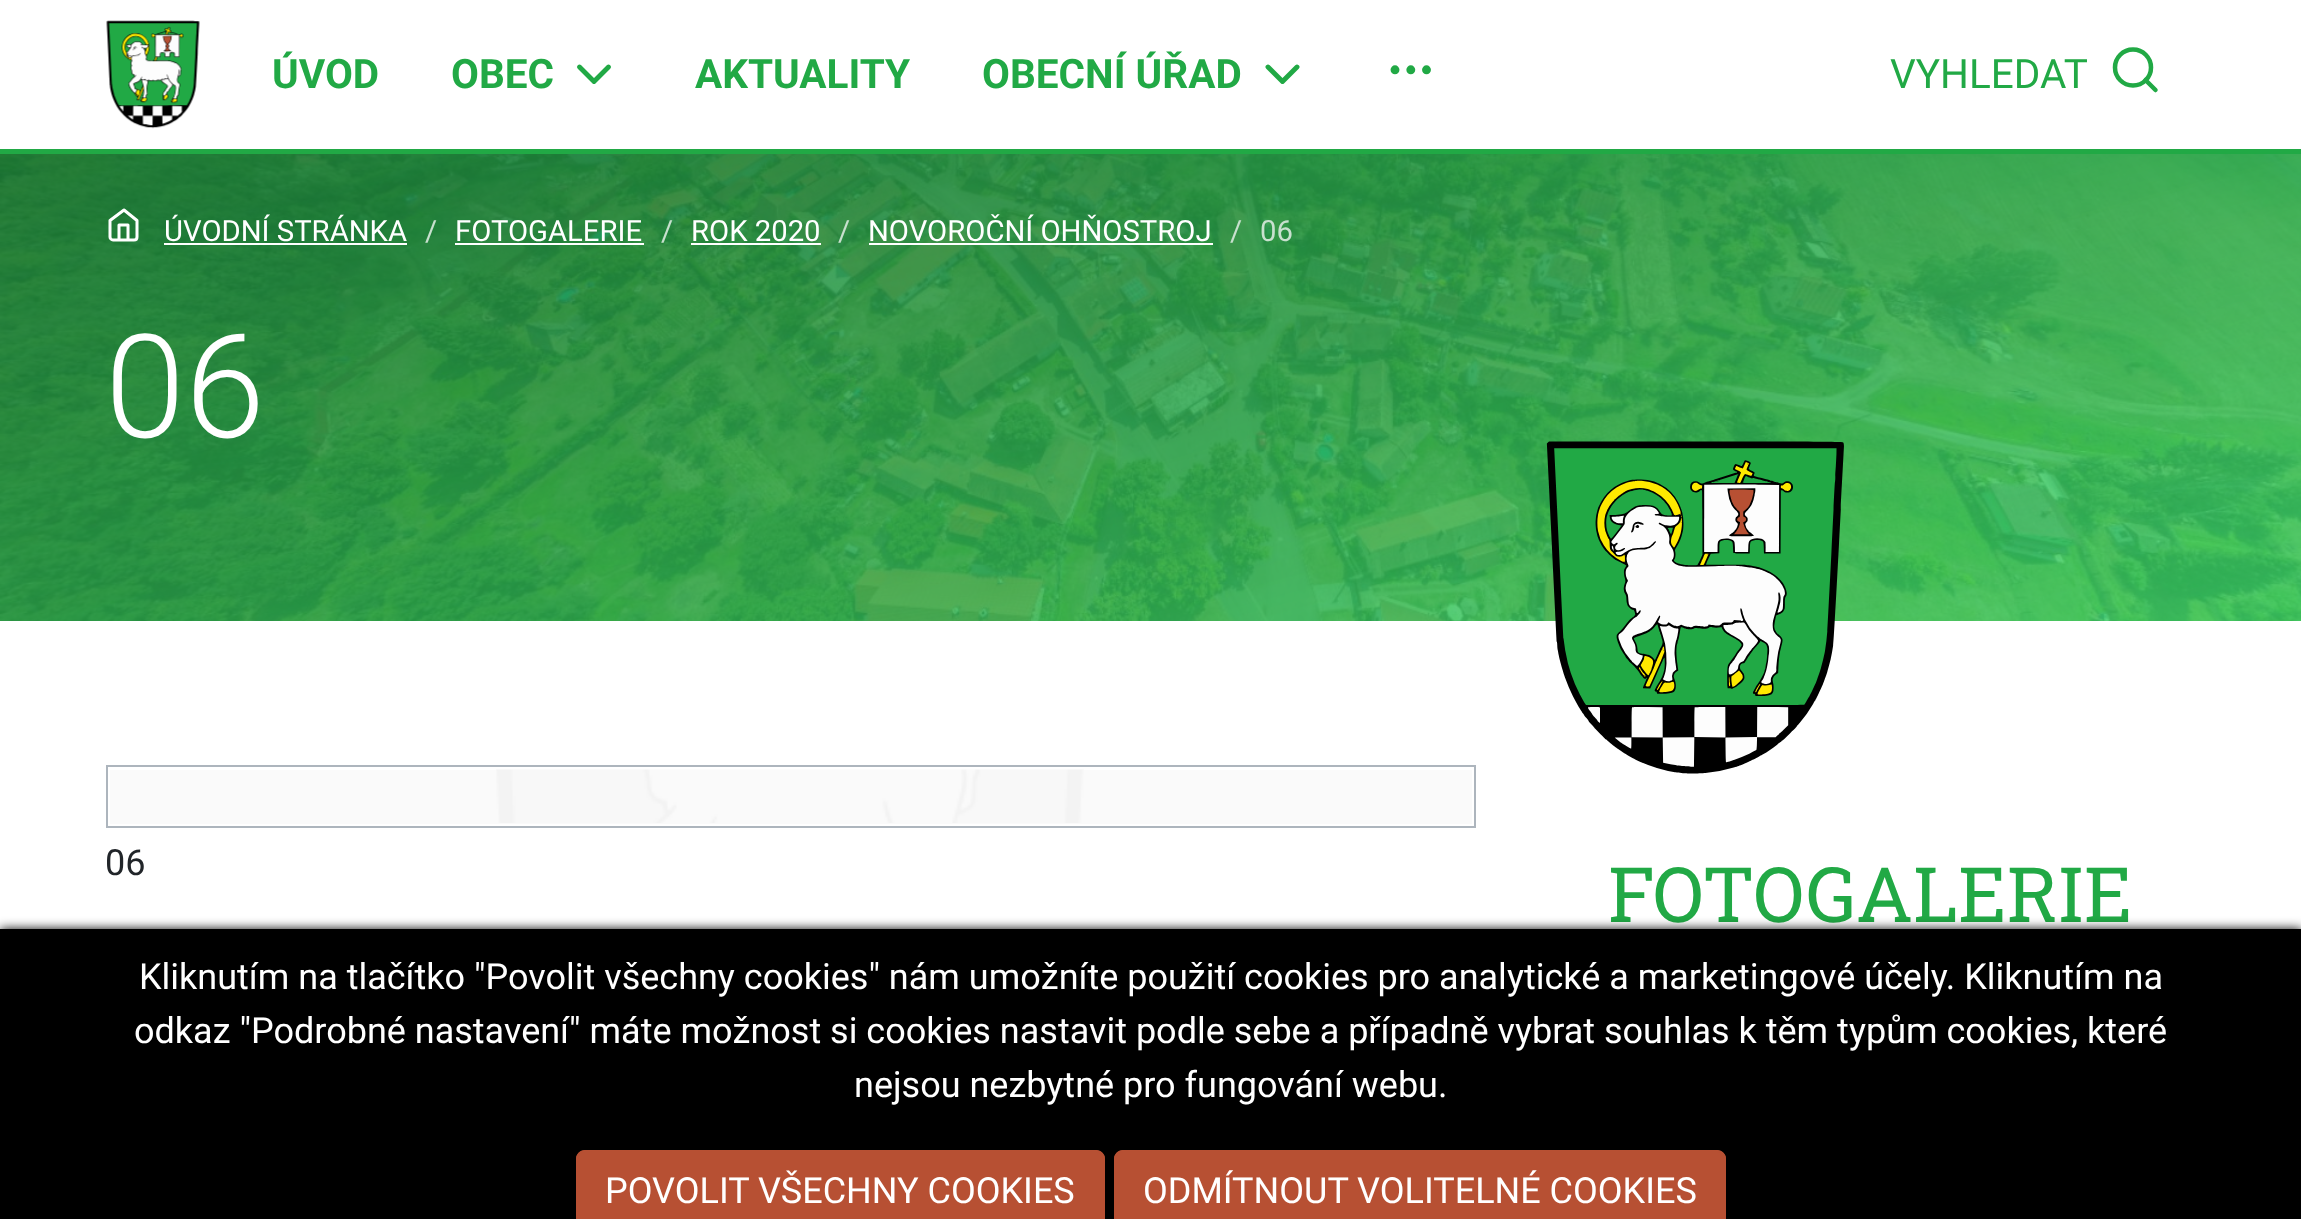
<svg xmlns="http://www.w3.org/2000/svg" width="2301" height="1219" viewBox="0 0 2301 1219">
  <rect width="100%" height="100%" fill="rgb(255,255,255)"/>
  <rect x="0" y="149" width="2301" height="5" fill="rgb(33,169,69)"/>
  <image x="106" y="20" width="94" height="109" href="pic1.png"/>
  <g font-family="Roboto" font-size="40.5" font-weight="bold" fill="rgb(33,169,69)">
    <text x="272" y="88">ÚVOD</text>
    <text x="451" y="88">OBEC</text>
  </g>
  <path d="M579.5 67L594 81.5L608.5 67" fill="none" stroke="rgb(33,169,69)" stroke-width="4.9" stroke-linecap="round" stroke-linejoin="round"/>
  <g font-family="Roboto" font-size="40.5" font-weight="bold" fill="rgb(33,169,69)">
    <text x="695" y="88">AKTUALITY</text>
    <text x="982" y="88">OBECNÍ ÚŘAD</text>
  </g>
  <path d="M1268 67L1282.5 81.5L1297 67" fill="none" stroke="rgb(33,169,69)" stroke-width="4.9" stroke-linecap="round" stroke-linejoin="round"/>
  <circle cx="1395" cy="69.8" r="2.2" fill="none" stroke="rgb(33,169,69)" stroke-width="4.5"/>
  <circle cx="1410.8" cy="69.8" r="2.2" fill="none" stroke="rgb(33,169,69)" stroke-width="4.5"/>
  <circle cx="1426.5" cy="69.8" r="2.2" fill="none" stroke="rgb(33,169,69)" stroke-width="4.5"/>
  <text x="1890" y="88" font-family="Roboto" font-size="40.5" fill="rgb(33,169,69)">VYHLEDAT</text>
  <circle cx="2133" cy="67.5" r="18" fill="none" stroke="rgb(33,169,69)" stroke-width="4.5"/>
  <path d="M2155.5 90L2145.5 80" fill="none" stroke="rgb(33,169,69)" stroke-width="4.5" stroke-linecap="round" stroke-linejoin="round"/>
  <image x="0" y="154" width="2301" height="467" href="pic2.png"/>
  <path d="M110 220.5L124 210L137 220.5V237C137 238.5 136 240 134 240H113C111.5 240 110 238.5 110 237ZM119 240V225H128V240" fill="none" stroke="rgb(255,255,255)" stroke-width="3" stroke-linecap="round" stroke-linejoin="round"/>
  <text x="164" y="241" font-family="Roboto" font-size="29.25" fill="rgb(255,255,255)">ÚVODNÍ STRÁNKA</text>
  <rect x="164" y="243" width="243" height="2" fill="rgb(255,255,255)"/>
  <text x="425" y="241" font-family="Roboto" font-size="29.25" fill="rgb(200,224,206)">/</text>
  <text x="455" y="241" font-family="Roboto" font-size="29.25" fill="rgb(255,255,255)">FOTOGALERIE</text>
  <rect x="455" y="243" width="189" height="2" fill="rgb(255,255,255)"/>
  <text x="661" y="241" font-family="Roboto" font-size="29.25" fill="rgb(200,224,206)">/</text>
  <text x="691" y="241" font-family="Roboto" font-size="29.25" fill="rgb(255,255,255)">ROK 2020</text>
  <rect x="691" y="243" width="130" height="2" fill="rgb(255,255,255)"/>
  <text x="838" y="241" font-family="Roboto" font-size="29.25" fill="rgb(200,224,206)">/</text>
  <text x="868" y="241" font-family="Roboto" font-size="29.25" fill="rgb(255,255,255)">NOVOROČNÍ OHŇOSTROJ</text>
  <rect x="869" y="243" width="344" height="2" fill="rgb(255,255,255)"/>
  <g font-family="Roboto" font-size="29.25" fill="rgb(200,224,206)">
    <text x="1230" y="241">/</text>
    <text x="1260" y="241">06</text>
  </g>
  <text x="105" y="437" font-family="Roboto" font-size="144" font-weight="300" fill="rgb(255,255,255)">06</text>
  <rect x="107" y="766" width="1368" height="61" fill="none" stroke="rgb(173,181,189)" stroke-width="2"/>
  <rect x="110" y="770" width="1362" height="54" fill="rgb(250,250,250)"/>
  <image x="496" y="769" width="588" height="54" href="pic3.png"/>
  <text x="105" y="875" font-family="Roboto" font-size="36" fill="rgb(33,37,41)">06</text>
  <image x="1546" y="441" width="298" height="333" href="pic4.png"/>
  <text x="1608" y="922" font-family="Roboto Slab" font-size="76.25" fill="rgb(33,169,69)">FOTOGALERIE</text>
  <rect x="0" y="929" width="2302" height="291" fill="rgb(0,0,0)" filter="blur(5.5px)"/>
  <rect x="0" y="929" width="2301" height="290" fill="rgb(0,0,0)"/>
  <g font-family="Roboto" font-size="36" fill="rgb(255,255,255)">
    <text x="139" y="989">Kliknutím na tlačítko "Povolit všechny cookies" nám umožníte použití cookies pro analytické a marketingové účely. Kliknutím na</text>
    <text x="134" y="1043">odkaz "Podrobné nastavení" máte možnost si cookies nastavit podle sebe a případně vybrat souhlas k těm typům cookies, které</text>
    <text x="854" y="1097">nejsou nezbytné pro fungování webu.</text>
  </g>
  <path d="M585 1150H1096C1101 1150 1105 1154 1105 1159V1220H576V1159C576 1154 580 1150 585 1150Z" fill="rgb(183,80,51)"/>
  <rect x="577" y="1151" width="527" height="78" rx="8" fill="none" stroke="rgb(183,80,51)" stroke-width="2"/>
  <text x="605" y="1203" font-family="Roboto" font-size="36" fill="rgb(255,255,255)">POVOLIT VŠECHNY COOKIES</text>
  <path d="M1123 1150H1717C1722 1150 1726 1154 1726 1159V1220H1114V1159C1114 1154 1118 1150 1123 1150Z" fill="rgb(183,80,51)"/>
  <rect x="1115" y="1151" width="610" height="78" rx="8" fill="none" stroke="rgb(183,80,51)" stroke-width="2"/>
  <text x="1143" y="1203" font-family="Roboto" font-size="36" fill="rgb(255,255,255)">ODMÍTNOUT VOLITELNÉ COOKIES</text>
</svg>
